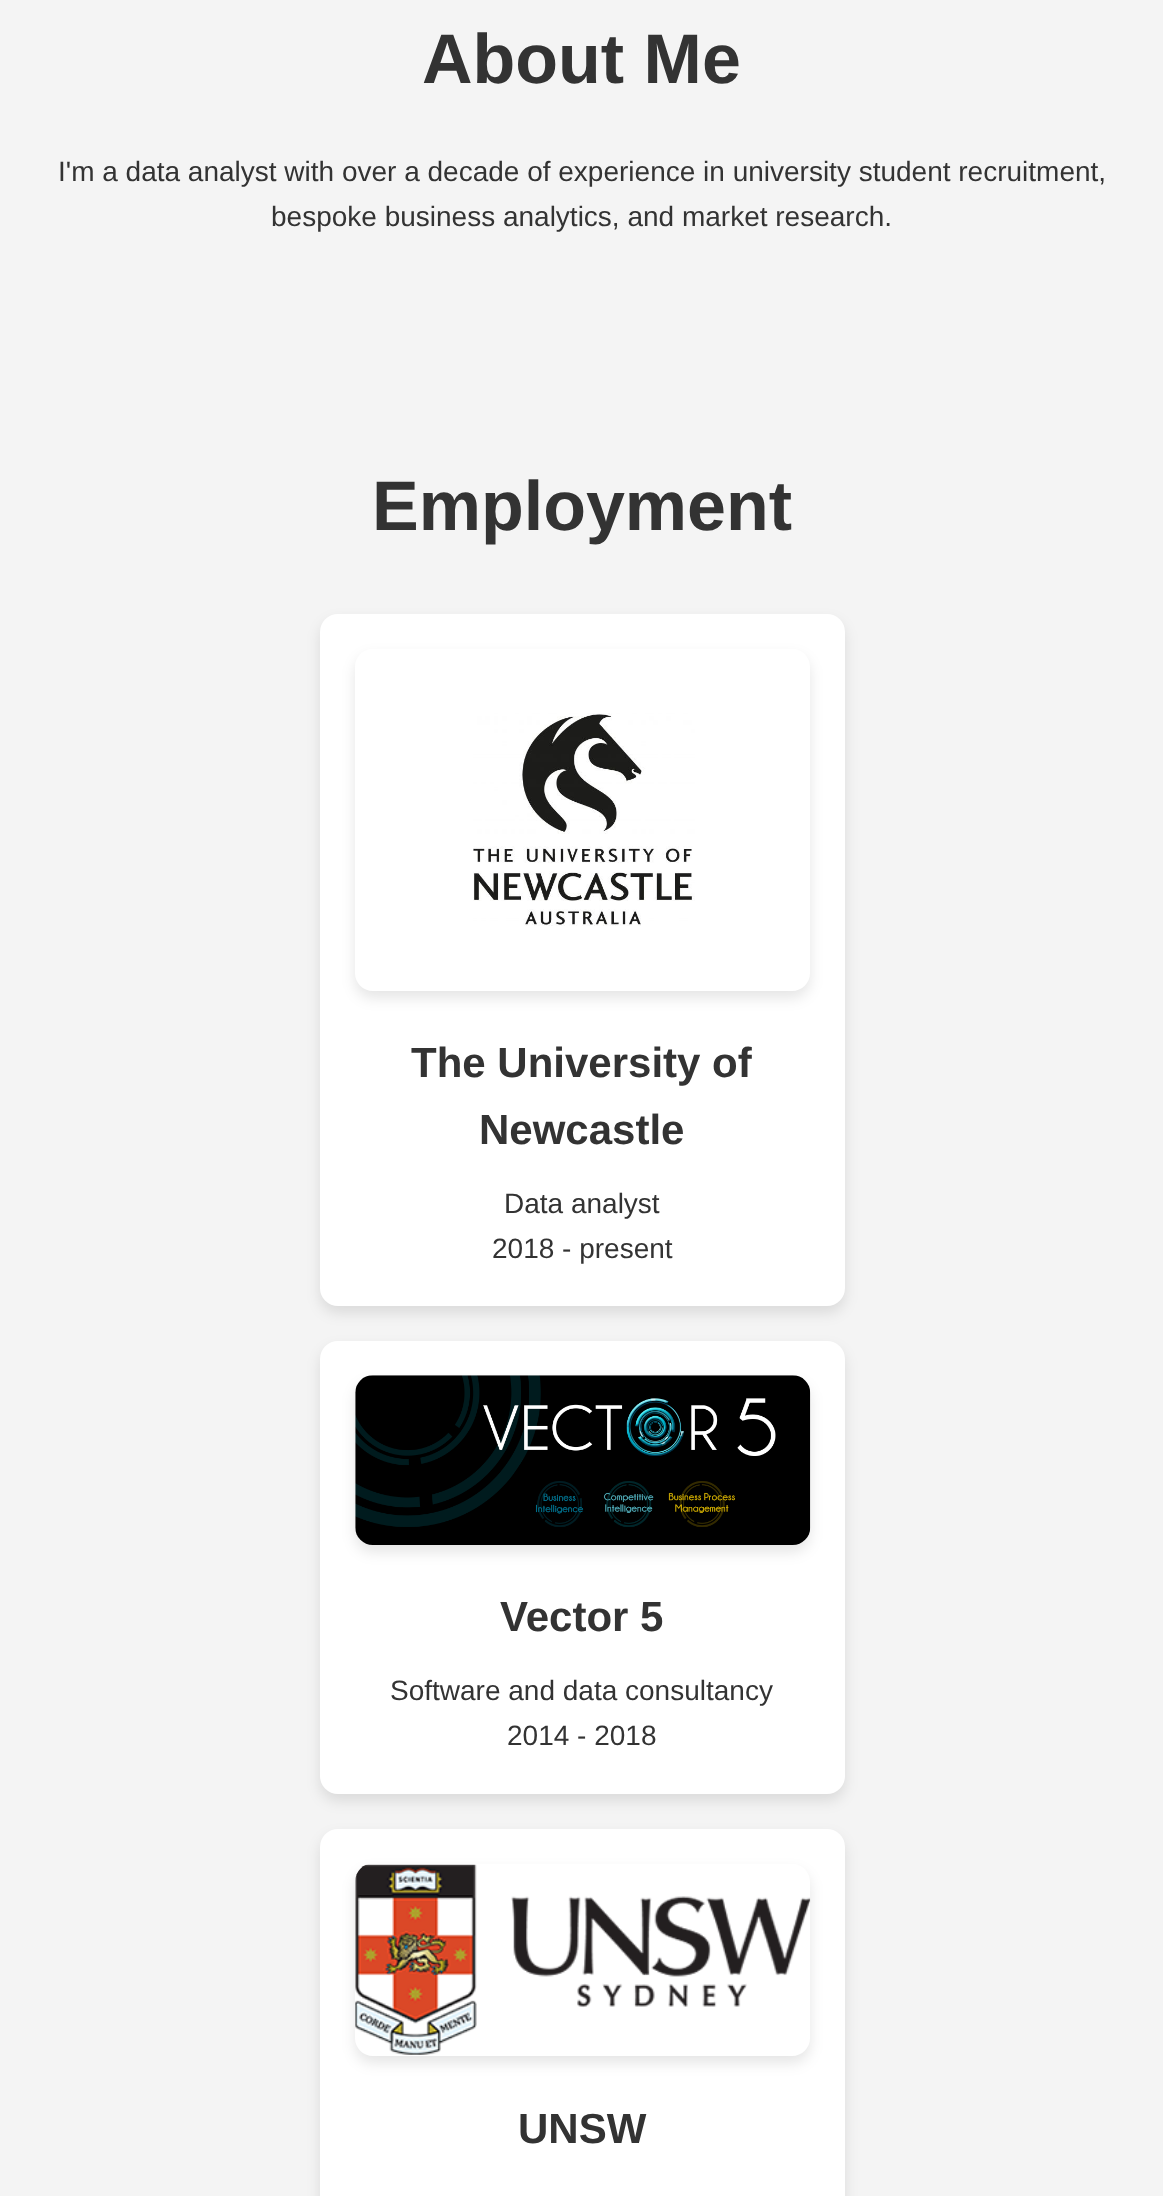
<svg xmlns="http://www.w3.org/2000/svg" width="1163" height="2196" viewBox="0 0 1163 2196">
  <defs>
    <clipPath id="clip1"><path d="M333 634H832V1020H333ZM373 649H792C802 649 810 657 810 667V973C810 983 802 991 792 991H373C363 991 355 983 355 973V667C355 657 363 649 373 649Z" clip-rule="evenodd"/></clipPath>
    <clipPath id="clip2"><path d="M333 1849H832V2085H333ZM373 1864H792C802 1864 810 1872 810 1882V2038C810 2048 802 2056 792 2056H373C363 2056 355 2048 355 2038V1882C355 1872 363 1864 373 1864Z" clip-rule="evenodd"/></clipPath>
  </defs>
  <rect width="100%" height="100%" fill="rgb(244,244,244)"/>
  <text x="422" y="83" font-family="Liberation Sans" font-size="70" font-weight="bold" fill="rgb(51,51,51)">About Me</text>
  <g font-family="Liberation Sans" font-size="28" fill="rgb(51,51,51)">
    <text x="58" y="181">I'm a data analyst with over a decade of experience in university student recruitment,</text>
    <text x="271" y="226">bespoke business analytics, and market research.</text>
  </g>
  <text x="372" y="530" font-family="Liberation Sans" font-size="70" font-weight="bold" fill="rgb(51,51,51)">Employment</text>
  <rect x="320" y="621" width="525" height="692" rx="18" fill="rgba(0,0,0,0.1)" filter="blur(7px)"/>
  <rect x="320" y="614" width="525" height="692" rx="18" fill="rgb(255,255,255)"/>
  <g clip-path="url(#clip1)">
    <rect x="355" y="656" width="455" height="342" rx="18" fill="rgba(0,0,0,0.1)" filter="blur(7px)"/>
  </g>
  <image x="473" y="713" width="222" height="213" href="pic1.png"/>
  <g font-family="Liberation Sans" font-size="42" font-weight="bold" fill="rgb(51,51,51)">
    <text x="411" y="1077">The University of</text>
    <text x="479" y="1144">Newcastle</text>
  </g>
  <g font-family="Liberation Sans" font-size="28" fill="rgb(51,51,51)">
    <text x="504" y="1213">Data analyst</text>
    <text x="492" y="1258">2018 - present</text>
  </g>
  <rect x="320" y="1348" width="525" height="453" rx="18" fill="rgba(0,0,0,0.1)" filter="blur(7px)"/>
  <rect x="320" y="1341" width="525" height="453" rx="18" fill="rgb(255,255,255)"/>
  <rect x="355" y="1383" width="455" height="169" rx="18" fill="rgba(0,0,0,0.1)" filter="blur(7px)"/>
  <image x="355" y="1375" width="456" height="170" href="pic2.png"/>
  <text x="500" y="1631" font-family="Liberation Sans" font-size="42" font-weight="bold" fill="rgb(51,51,51)">Vector 5</text>
  <g font-family="Liberation Sans" font-size="28" fill="rgb(51,51,51)">
    <text x="390" y="1700">Software and data consultancy</text>
    <text x="507" y="1745">2014 - 2018</text>
  </g>
  <rect x="320" y="1836" width="525" height="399" rx="18" fill="rgba(0,0,0,0.1)" filter="blur(7px)"/>
  <rect x="320" y="1829" width="525" height="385" rx="18" fill="rgb(255,255,255)"/>
  <g clip-path="url(#clip2)">
    <rect x="355" y="1871" width="455" height="192" rx="18" fill="rgba(0,0,0,0.1)" filter="blur(7px)"/>
  </g>
  <image x="355" y="1864" width="456" height="191" href="pic3.png"/>
  <text x="518" y="2143" font-family="Liberation Sans" font-size="42" font-weight="bold" fill="rgb(51,51,51)">UNSW</text>
</svg>
